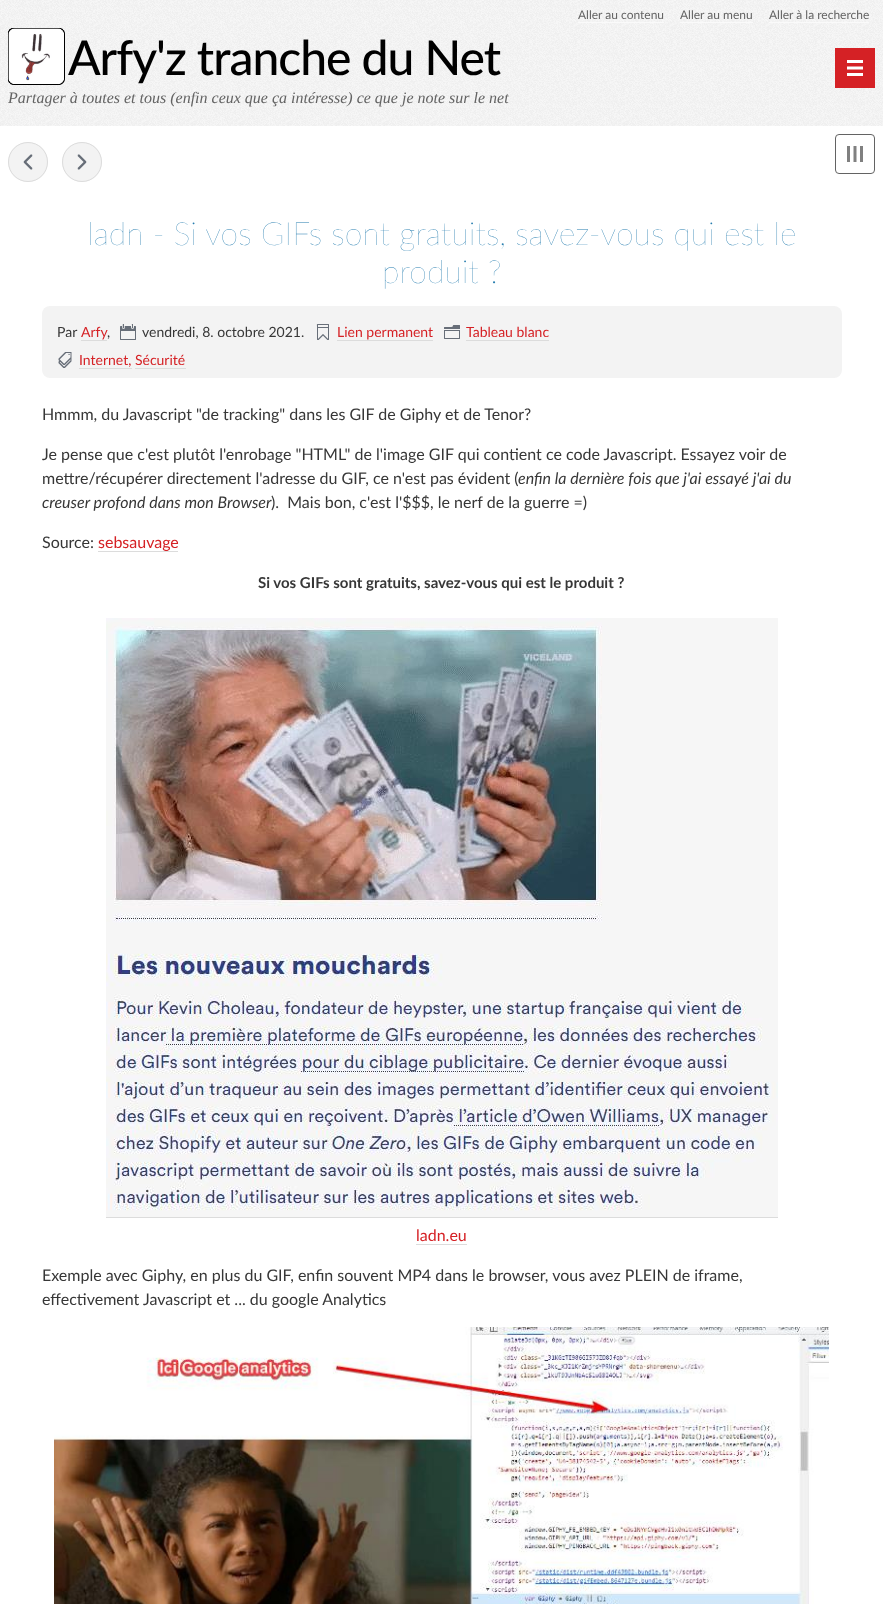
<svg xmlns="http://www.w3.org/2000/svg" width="883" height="1604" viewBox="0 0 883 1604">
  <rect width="100%" height="100%" fill="rgb(255,255,255)"/>
  <image x="0" y="0" width="883" height="126" href="pic1.png"/>
  <text x="578" y="19" font-family="Lato" font-size="12" fill="rgb(99,99,99)">Aller au contenu</text>
  <rect x="578" y="22" width="86" height="1" fill="rgb(250,250,250)"/>
  <text x="680" y="19" font-family="Lato" font-size="12" fill="rgb(99,99,99)">Aller au menu</text>
  <rect x="680" y="22" width="73" height="1" fill="rgb(250,250,250)"/>
  <text x="769" y="19" font-family="Lato" font-size="12" fill="rgb(99,99,99)">Aller à la recherche</text>
  <rect x="769" y="22" width="100" height="1" fill="rgb(250,250,250)"/>
  <image x="8" y="28" width="57" height="57" href="pic2.png"/>
  <text x="68" y="75" font-family="Lato" font-size="48" font-weight="500" letter-spacing="-1" fill="rgb(0,0,0)">Arfy'z tranche du Net</text>
  <text x="8" y="103" font-family="Liberation Serif" font-size="16" font-style="italic" fill="rgb(99,99,99)">Partager à toutes et tous (enfin ceux que ça intéresse) ce que je note sur le net</text>
  <rect x="835" y="48" width="40" height="40" fill="rgb(213,33,37)"/>
  <image x="847" y="60" width="16" height="16" href="pic3.png"/>
  <image x="847" y="146" width="16" height="16" href="pic4.png"/>
  <rect x="835.5" y="134.5" width="39" height="39" rx="3.5" fill="none" stroke="rgb(99,99,99)"/>
  <circle cx="28" cy="162" r="20" fill="rgb(243,243,243)"/>
  <image x="23" y="154" width="10" height="16" href="pic5.png"/>
  <circle cx="28" cy="162" r="19.5" fill="none" stroke="rgb(220,220,220)"/>
  <circle cx="82" cy="162" r="20" fill="rgb(243,243,243)"/>
  <image x="77" y="154" width="10" height="16" href="pic6.png"/>
  <circle cx="82" cy="162" r="19.5" fill="none" stroke="rgb(220,220,220)"/>
  <g font-family="Lato" font-size="32" font-weight="200" fill="rgb(38,125,175)">
    <text x="87" y="245">ladn - Si vos GIFs sont gratuits, savez-vous qui est le</text>
    <text x="382" y="283">produit ?</text>
  </g>
  <rect x="42" y="306" width="800" height="72" rx="8" fill="rgb(243,243,243)"/>
  <text x="57" y="337" font-family="Lato" font-size="14" fill="rgb(55,55,55)">Par</text>
  <text x="81" y="337" font-family="Lato" font-size="14" fill="rgb(213,33,37)">Arfy</text>
  <text x="107" y="337" font-family="Lato" font-size="14" fill="rgb(55,55,55)">,</text>
  <rect x="81" y="340" width="26" height="1" fill="rgb(220,220,220)"/>
  <image x="120" y="324" width="16" height="16" href="pic7.png"/>
  <text x="142" y="337" font-family="Lato" font-size="14" fill="rgb(55,55,55)">vendredi, 8. octobre 2021.</text>
  <image x="316" y="324" width="13" height="16" href="pic8.png"/>
  <text x="337" y="337" font-family="Lato" font-size="14" fill="rgb(213,33,37)">Lien permanent</text>
  <rect x="337" y="340" width="96" height="1" fill="rgb(220,220,220)"/>
  <image x="444" y="325" width="16" height="14" href="pic9.png"/>
  <text x="466" y="337" font-family="Lato" font-size="14" fill="rgb(213,33,37)">Tableau blanc</text>
  <rect x="466" y="340" width="83" height="1" fill="rgb(220,220,220)"/>
  <image x="58" y="352" width="14" height="16" href="pic10.png"/>
  <text x="79" y="365" font-family="Lato" font-size="14" fill="rgb(213,33,37)">Internet, Sécurité</text>
  <rect x="79" y="368" width="53" height="1" fill="rgb(220,220,220)"/>
  <rect x="135" y="368" width="51" height="1" fill="rgb(220,220,220)"/>
  <g font-family="Lato" font-size="16" fill="rgb(55,55,55)">
    <text x="42" y="420">Hmmm, du Javascript "de tracking" dans les GIF de Giphy et de Tenor?</text>
    <text>
      <tspan x="42" y="460">Je pense que c'est plutôt l'enrobage "HTML" de l'image GIF qui contient ce code Javascript. Essayez voir de</tspan>
      <tspan x="42" y="484">mettre/récupérer directement l'adresse du GIF, ce n'est pas évident (</tspan>
    </text>
  </g>
  <g font-family="Lato" font-size="16" font-style="italic" fill="rgb(55,55,55)">
    <text x="518" y="484">enfin la dernière fois que j'ai essayé j'ai du</text>
    <text x="42" y="508">creuser profond dans mon Browser</text>
  </g>
  <g font-family="Lato" font-size="16" fill="rgb(55,55,55)">
    <text x="271" y="508" xml:space="preserve">).  Mais bon, c'est l'$$$, le nerf de la guerre =)</text>
    <text x="42" y="548">Source:</text>
  </g>
  <text x="98" y="548" font-family="Lato" font-size="16" fill="rgb(213,33,37)">sebsauvage</text>
  <rect x="98" y="551" width="80" height="1" fill="rgb(220,220,220)"/>
  <text x="258" y="588" font-family="Lato" font-size="15" font-weight="bold" fill="rgb(55,55,55)">Si vos GIFs sont gratuits, savez-vous qui est le produit ?</text>
  <image x="106" y="618" width="672" height="599" href="pic11.png"/>
  <text x="416" y="1241" font-family="Lato" font-size="16" fill="rgb(213,33,37)">ladn.eu</text>
  <rect x="106" y="1217" width="672" height="1" fill="rgb(220,220,220)"/>
  <rect x="416" y="1244" width="51" height="1" fill="rgb(220,220,220)"/>
  <g font-family="Lato" font-size="16" fill="rgb(55,55,55)">
    <text>
      <tspan x="42" y="1281">Exemple avec Giphy, en plus du GIF, enfin souvent MP4 dans le browser, vous avez PLEIN de iframe,</tspan>
      <tspan x="42" y="1305">effectivement Javascript et ... du google Analytics</tspan>
    </text>
  </g>
  <image x="54" y="1327" width="775" height="277" href="pic12.png"/>
</svg>
